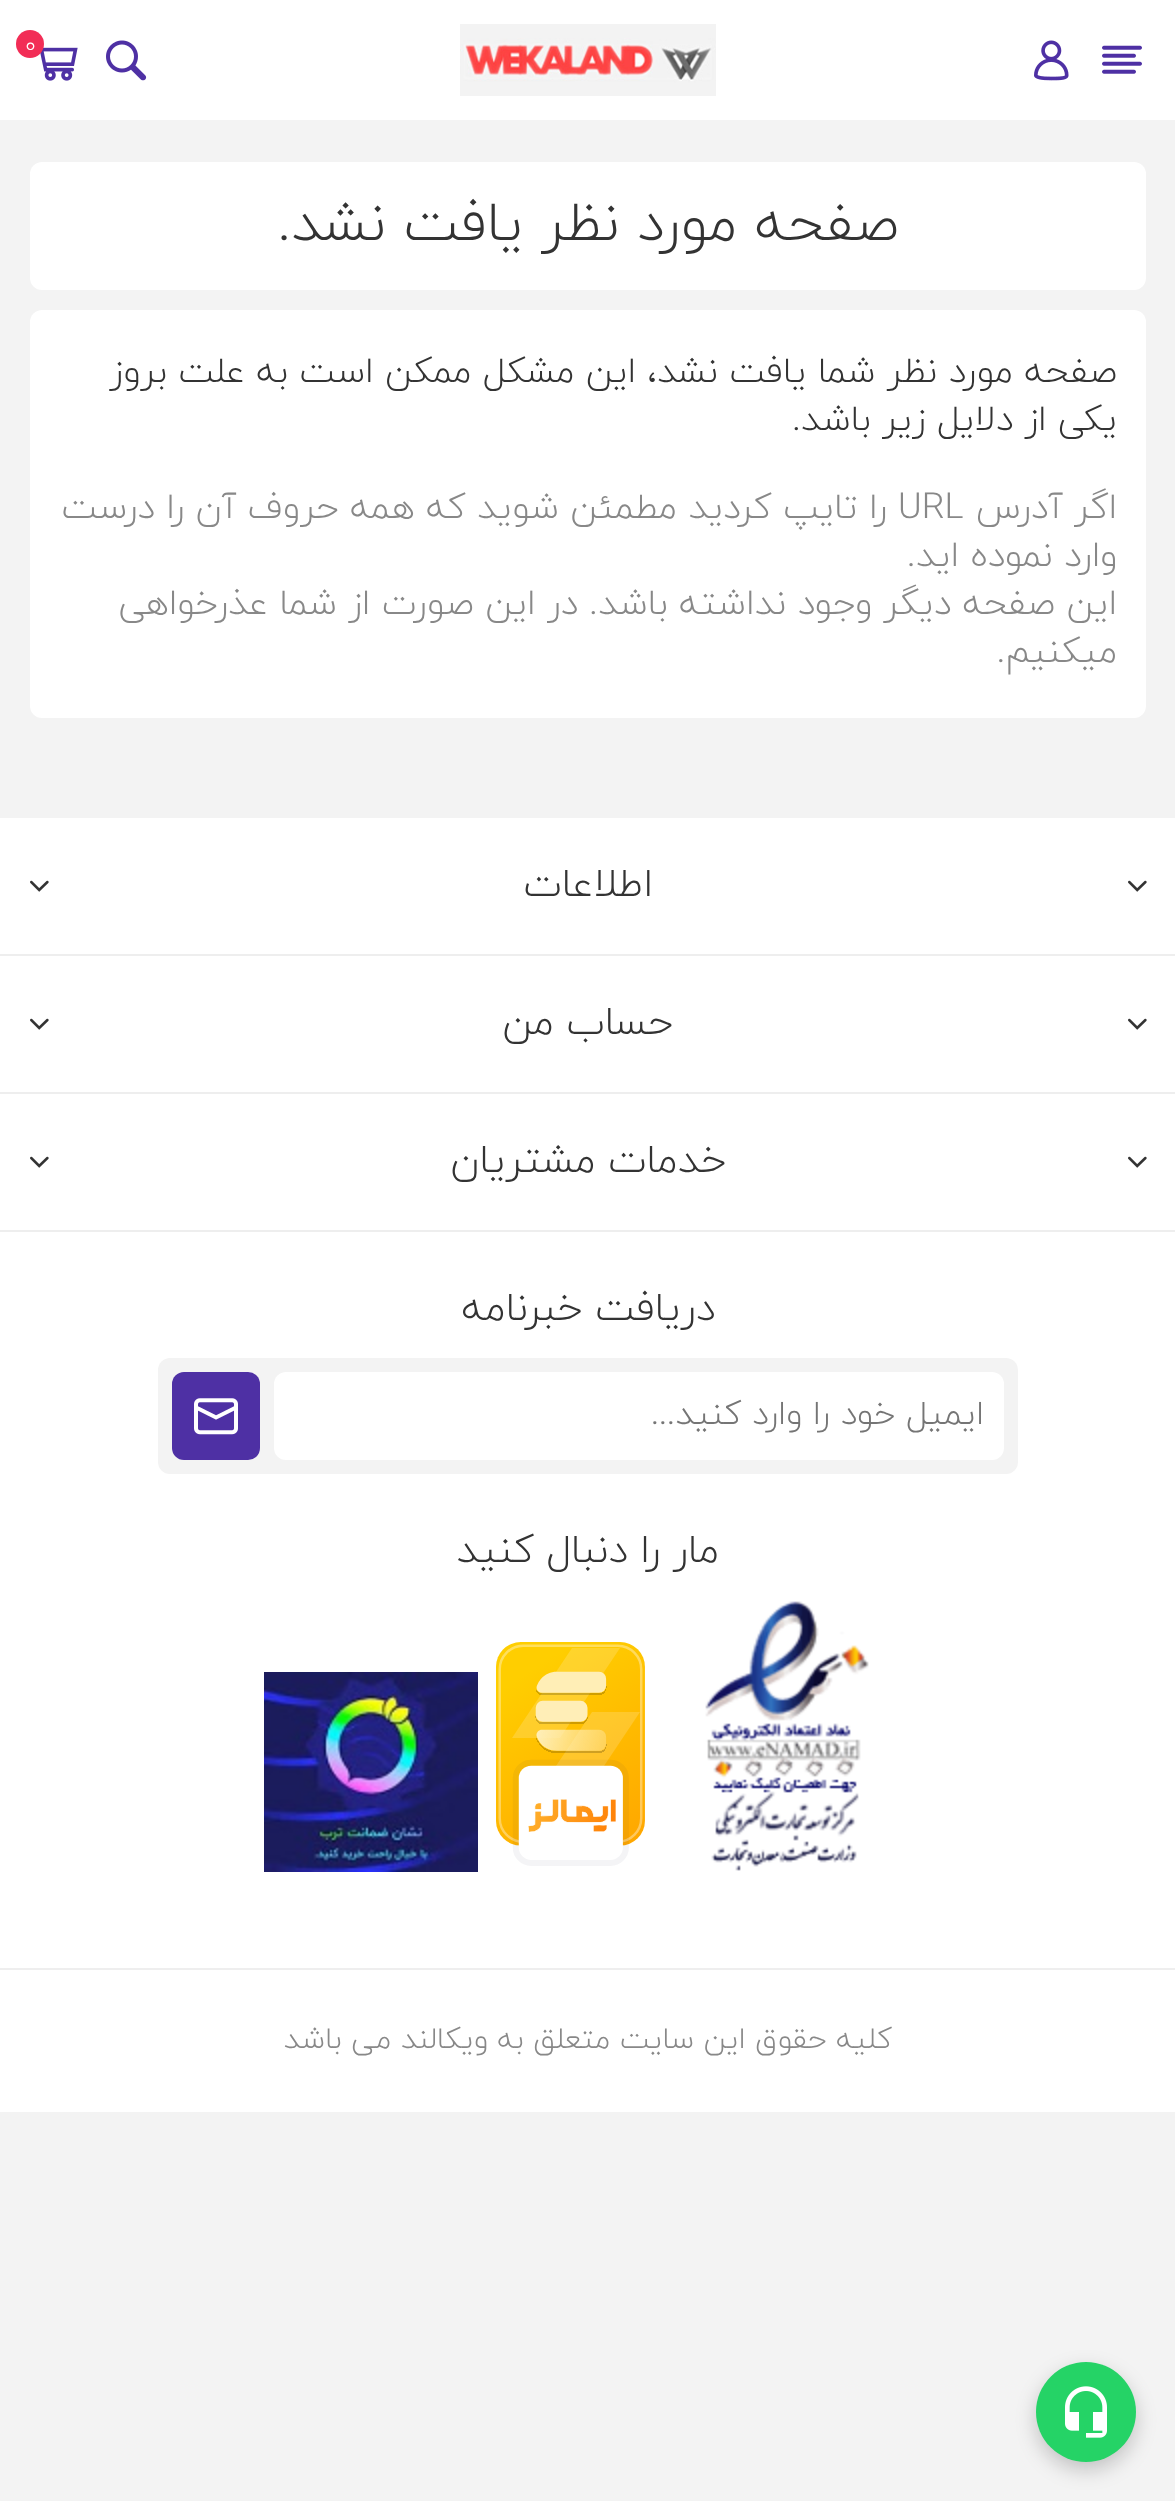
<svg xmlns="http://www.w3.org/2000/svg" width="1175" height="2501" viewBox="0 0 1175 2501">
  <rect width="100%" height="100%" fill="rgb(243,243,243)"/>
  <rect x="0" y="0" width="1175" height="120" fill="rgb(255,255,255)"/>
  <image x="1102" y="45" width="40" height="29" href="pic1.png"/>
  <image x="1034" y="40" width="35" height="41" href="pic2.png"/>
  <image x="460" y="24" width="256" height="72" href="pic3.png"/>
  <image x="106" y="40" width="41" height="41" href="pic4.png"/>
  <image x="40" y="47" width="38" height="34" href="pic5.png"/>
  <circle cx="30" cy="44" r="14" fill="rgb(242,45,86)"/>
  <text x="25" y="52" font-family="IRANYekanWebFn" font-size="22" font-weight="300" fill="rgb(255,255,255)">0</text>
  <rect x="30" y="162" width="1116" height="128" rx="12" fill="rgb(255,255,255)"/>
  <text x="899" y="240" font-family="IRANYekanWebFn" font-size="56" font-weight="300" direction="rtl" fill="rgb(51,51,51)">صفحه مورد نظر یافت نشد.</text>
  <rect x="30" y="310" width="1116" height="408" rx="12" fill="rgb(255,255,255)"/>
  <g font-family="IRANYekanWebFn" font-size="36" font-weight="300" direction="rtl" fill="rgb(51,51,51)">
    <text>
      <tspan x="1117" y="382">صفحه مورد نظر شما یافت نشد، این مشکل ممکن است به علت بروز</tspan>
      <tspan x="1117" y="430">یکی از دلایل زیر باشد.</tspan>
    </text>
  </g>
  <text x="1117" y="518" font-family="IRANYekanWebFn" font-size="36" font-weight="300" direction="rtl" fill="rgb(136,136,136)">اگر آدرس</text>
  <text x="898" y="518" font-family="IRANYekanWebFn" font-size="36" font-weight="300" fill="rgb(136,136,136)">URL</text>
  <g font-family="IRANYekanWebFn" font-size="36" font-weight="300" direction="rtl" fill="rgb(136,136,136)">
    <text x="887" y="518">را تایپ کردید مطمئن شوید که همه حروف آن را درست</text>
    <text>
      <tspan x="1117" y="566">وارد نموده اید.</tspan>
      <tspan x="1117" y="614">این صفحه دیگر وجود نداشته باشد. در این صورت از شما عذرخواهی</tspan>
      <tspan x="1117" y="662">میکنیم.</tspan>
    </text>
  </g>
  <rect x="0" y="818" width="1175" height="1294" fill="rgb(255,255,255)"/>
  <rect x="0" y="954" width="1175" height="2" fill="rgb(238,238,238)"/>
  <image x="1128" y="880" width="19" height="12" href="pic6.png"/>
  <text x="653" y="896" font-family="IRANYekanWebFn" font-size="40" font-weight="300" direction="rtl" fill="rgb(51,51,51)">اطلاعات</text>
  <image x="30" y="880" width="19" height="12" href="pic6.png"/>
  <rect x="0" y="1092" width="1175" height="2" fill="rgb(238,238,238)"/>
  <image x="1128" y="1018" width="19" height="12" href="pic6.png"/>
  <text x="673" y="1034" font-family="IRANYekanWebFn" font-size="40" font-weight="300" direction="rtl" fill="rgb(51,51,51)">حساب من</text>
  <image x="30" y="1018" width="19" height="12" href="pic6.png"/>
  <rect x="0" y="1230" width="1175" height="2" fill="rgb(238,238,238)"/>
  <image x="1128" y="1156" width="19" height="12" href="pic6.png"/>
  <text x="726" y="1172" font-family="IRANYekanWebFn" font-size="40" font-weight="300" direction="rtl" fill="rgb(51,51,51)">خدمات مشتریان</text>
  <image x="30" y="1156" width="19" height="12" href="pic6.png"/>
  <rect x="0" y="1968" width="1175" height="2" fill="rgb(238,238,238)"/>
  <text x="715" y="1320" font-family="IRANYekanWebFn" font-size="40" font-weight="300" direction="rtl" fill="rgb(51,51,51)">دریافت خبرنامه</text>
  <rect x="158" y="1358" width="860" height="116" rx="12" fill="rgb(243,243,243)"/>
  <rect x="274" y="1372" width="730" height="88" rx="12" fill="rgb(255,255,255)"/>
  <text x="984" y="1424" font-family="IRANYekanWebFn" font-size="34" font-weight="300" direction="rtl" fill="rgb(117,117,117)">ایمیل خود را وارد کنید...</text>
  <rect x="172" y="1372" width="88" height="88" rx="12" fill="rgb(78,48,164)"/>
  <image x="194" y="1398" width="44" height="37" href="pic7.png"/>
  <text x="719" y="1562" font-family="IRANYekanWebFn" font-size="40" font-weight="300" direction="rtl" fill="rgb(51,51,51)">مار را دنبال کنید</text>
  <image x="705" y="1601" width="164" height="270" href="pic8.png"/>
  <image x="496" y="1642" width="149" height="224" href="pic9.png"/>
  <image x="264" y="1672" width="214" height="200" href="pic10.png"/>
  <g font-family="IRANYekanWebFn" font-size="30" font-weight="300" direction="rtl" fill="rgb(136,136,136)">
    <text x="892" y="2048">کلیه حقوق این سایت متعلق به</text>
    <text x="488" y="2048">ویکالند می باشد</text>
  </g>
  <rect x="1036" y="2370" width="100" height="100" rx="50" fill="rgba(0,0,0,0.2)" filter="blur(10px)"/>
  <circle cx="1086" cy="2412" r="50" fill="rgb(37,211,102)"/>
  <image x="1065" y="2386" width="42" height="52" href="pic11.png"/>
</svg>
